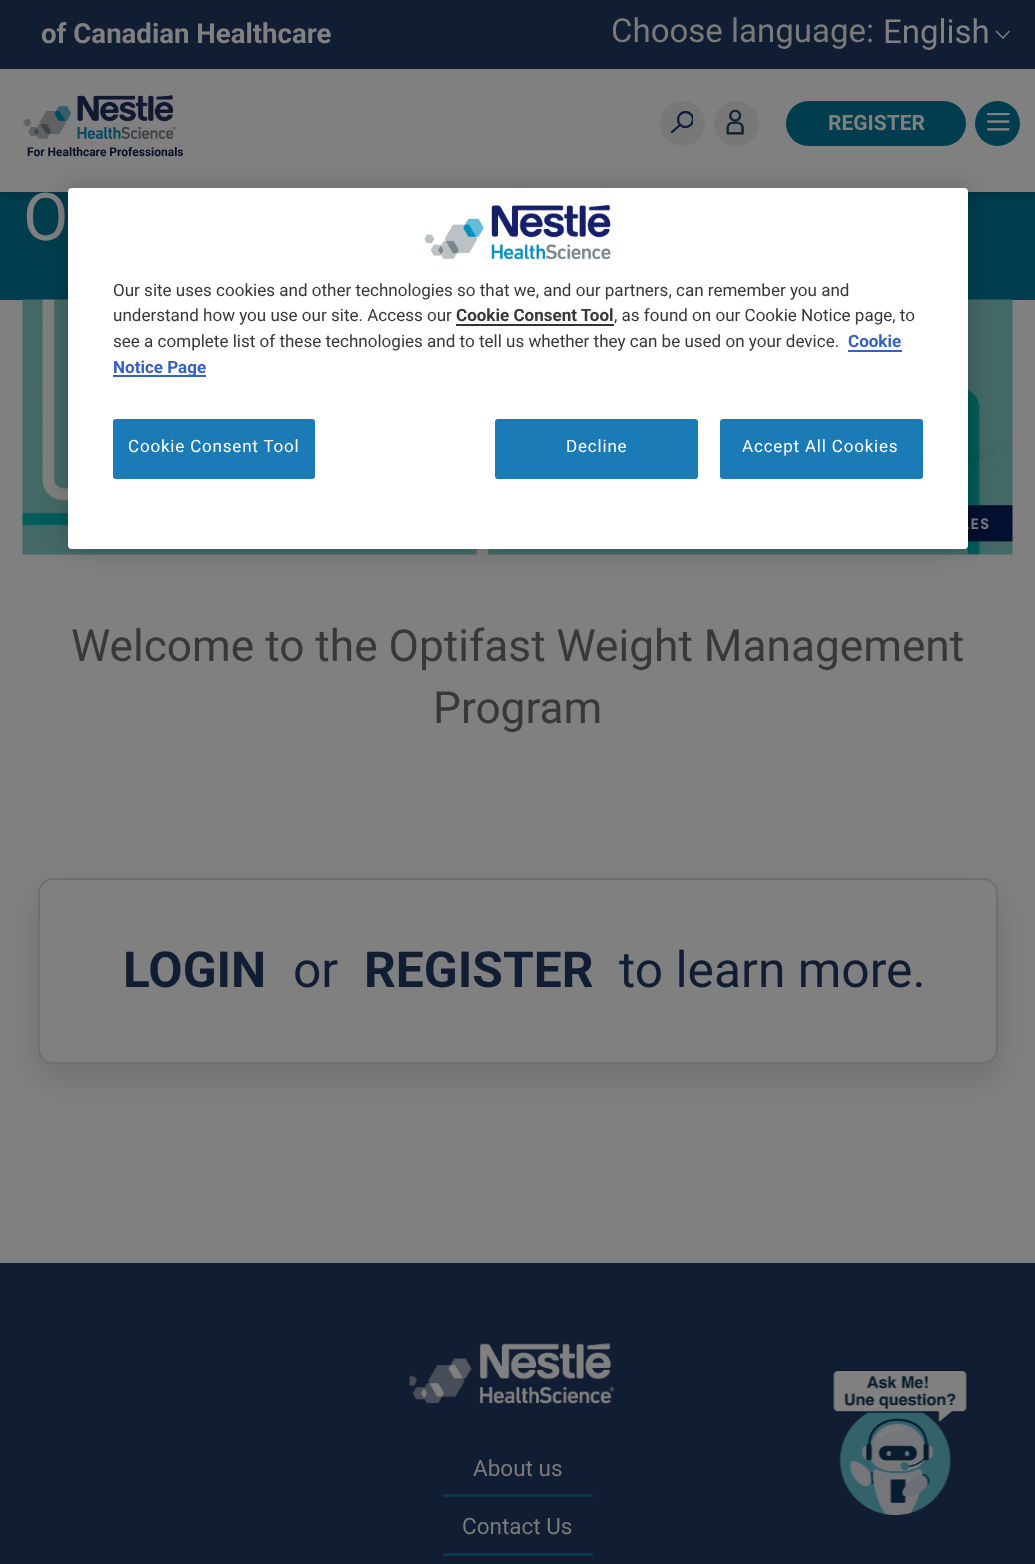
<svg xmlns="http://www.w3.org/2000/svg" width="1035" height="1564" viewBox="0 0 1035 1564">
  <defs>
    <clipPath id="clip1"><rect x="671" y="111" width="22" height="23"/></clipPath>
  </defs>
  <rect width="100%" height="100%" fill="rgb(128,128,128)"/>
  <rect x="0" y="192" width="1035" height="108" fill="rgb(0,62,79)"/>
  <rect x="0" y="57" width="1035" height="140" fill="rgba(0,0,0,0.15)" filter="blur(4.5px)"/>
  <rect x="0" y="69" width="1035" height="123" fill="rgb(128,128,128)"/>
  <rect x="0" y="0" width="1035" height="69" fill="rgb(17,29,51)"/>
  <text x="41" y="43" font-family="Roboto" font-size="27.6" font-weight="bold" fill="rgb(128,128,128)">of Canadian Healthcare</text>
  <text x="611" y="42" font-family="Roboto" font-size="33" fill="rgb(122,122,122)">Choose language:</text>
  <text x="883" y="43" font-family="Roboto" font-size="33" fill="rgb(128,128,128)">English</text>
  <path d="M1002 38L1009 30.5L1010 31.5L1003 39Z" fill="rgb(128,128,128)"/>
  <path d="M995.5 31.5L996.5 30.5L1004 38L1003 39Z" fill="rgb(128,128,128)"/>
  <circle cx="682.5" cy="123.5" r="22.5" fill="rgb(120,120,120)"/>
  <g clip-path="url(#clip1)">
    <circle cx="685.5" cy="119.5" r="7.5" fill="none" stroke="rgb(17,29,51)" stroke-width="2.3"/>
  </g>
  <path d="M680 125L672 132" fill="none" stroke="rgb(17,29,51)" stroke-width="2.3" stroke-linecap="round"/>
  <circle cx="736.5" cy="123.5" r="22.5" fill="rgb(120,120,120)"/>
  <image x="726" y="109" width="18" height="26" href="pic1.png"/>
  <rect x="786" y="101" width="180" height="45" rx="22.5" fill="rgb(0,62,79)"/>
  <text x="828" y="130" font-family="Roboto" font-size="21" font-weight="bold" fill="rgb(128,128,128)">REGISTER</text>
  <circle cx="997.5" cy="123.5" r="22.5" fill="rgb(0,62,79)"/>
  <image x="987" y="113" width="23" height="18" href="pic2.png"/>
  <image x="23" y="95" width="153" height="44" href="pic3.png"/>
  <text x="27" y="156" font-family="Roboto" font-size="12" font-weight="bold" fill="rgb(6,13,38)">For Healthcare Professionals</text>
  <text x="23" y="240" font-family="Roboto" font-size="66" fill="rgb(128,128,128)">O</text>
  <image x="22" y="299" width="991" height="256" href="pic4.png"/>
  <g font-family="Roboto" font-size="44.2" fill="rgb(56,56,56)">
    <text x="71" y="661">Welcome to the Optifast Weight Management</text>
    <text x="433" y="723">Program</text>
  </g>
  <rect x="38" y="893" width="960" height="186" rx="15" fill="rgba(0,0,0,0.12)" filter="blur(15px)"/>
  <rect x="39" y="879" width="958" height="184" rx="14" fill="rgb(128,128,128)" stroke="rgb(111,111,111)" stroke-width="2"/>
  <text x="123" y="987" font-family="Roboto" font-size="49.75" font-weight="bold" fill="rgb(17,29,51)">LOGIN</text>
  <text x="293" y="987" font-family="Roboto" font-size="49.75" fill="rgb(17,29,51)">or</text>
  <text x="364" y="987" font-family="Roboto" font-size="49.75" font-weight="bold" fill="rgb(17,29,51)">REGISTER</text>
  <text x="619" y="987" font-family="Roboto" font-size="49.75" fill="rgb(17,29,51)">to learn more.</text>
  <rect x="0" y="1263" width="1035" height="301" fill="rgb(17,29,51)"/>
  <image x="409" y="1343" width="206" height="61" href="pic5.png"/>
  <text x="473" y="1476" font-family="Roboto" font-size="22.5" fill="rgb(122,122,122)">About us</text>
  <rect x="443" y="1494" width="150" height="3" fill="rgb(11,54,75)"/>
  <text x="462" y="1534" font-family="Roboto" font-size="22.5" fill="rgb(122,122,122)">Contact Us</text>
  <rect x="443" y="1553" width="150" height="3" fill="rgb(11,54,75)"/>
  <rect x="68" y="188" width="900" height="361" rx="4" fill="rgba(0,0,0,0.2)" filter="blur(13.5px)"/>
  <rect x="68" y="188" width="900" height="361" rx="4" fill="rgb(255,255,255)"/>
  <image x="424" y="205" width="187" height="55" href="pic6.png"/>
  <g font-family="Roboto" font-size="17.05" fill="rgb(56,56,56)">
    <text>
      <tspan x="113" y="296">Our site uses cookies and other technologies so that we, and our partners, can remember you and</tspan>
      <tspan x="113" y="321">understand how you use our site. Access our</tspan>
    </text>
  </g>
  <text x="456" y="321" font-family="Roboto" font-size="17.05" font-weight="bold" fill="rgb(56,56,56)">Cookie Consent Tool</text>
  <rect x="456" y="324" width="158" height="2" fill="rgb(51,51,51)"/>
  <g font-family="Roboto" font-size="17.05" fill="rgb(56,56,56)">
    <text x="614" y="321">, as found on our Cookie Notice page, to</text>
    <text x="113" y="347">see a complete list of these technologies and to tell us whether they can be used on your device.</text>
  </g>
  <text x="848" y="347" font-family="Roboto" font-size="17.05" font-weight="bold" fill="rgb(56,96,190)">Cookie</text>
  <rect x="848" y="350" width="54" height="2" fill="rgb(56,96,190)"/>
  <rect x="113" y="375" width="93" height="2" fill="rgb(56,96,190)"/>
  <text x="113" y="373" font-family="Roboto" font-size="17.05" font-weight="bold" fill="rgb(56,96,190)">Notice Page</text>
  <rect x="113" y="419" width="202" height="60" rx="3" fill="rgb(27,123,183)"/>
  <text x="128" y="452" font-family="Roboto" font-size="17.05" letter-spacing="0.8" fill="rgb(255,255,255)">Cookie Consent Tool</text>
  <rect x="495" y="419" width="203" height="60" rx="3" fill="rgb(27,123,183)"/>
  <text x="566" y="452" font-family="Roboto" font-size="17.05" letter-spacing="0.8" fill="rgb(255,255,255)">Decline</text>
  <rect x="720" y="419" width="203" height="60" rx="3" fill="rgb(27,123,183)"/>
  <text x="742" y="452" font-family="Roboto" font-size="17.05" letter-spacing="0.8" fill="rgb(255,255,255)">Accept All Cookies</text>
  <image x="832" y="1369" width="136" height="146" href="pic7.png"/>
</svg>
